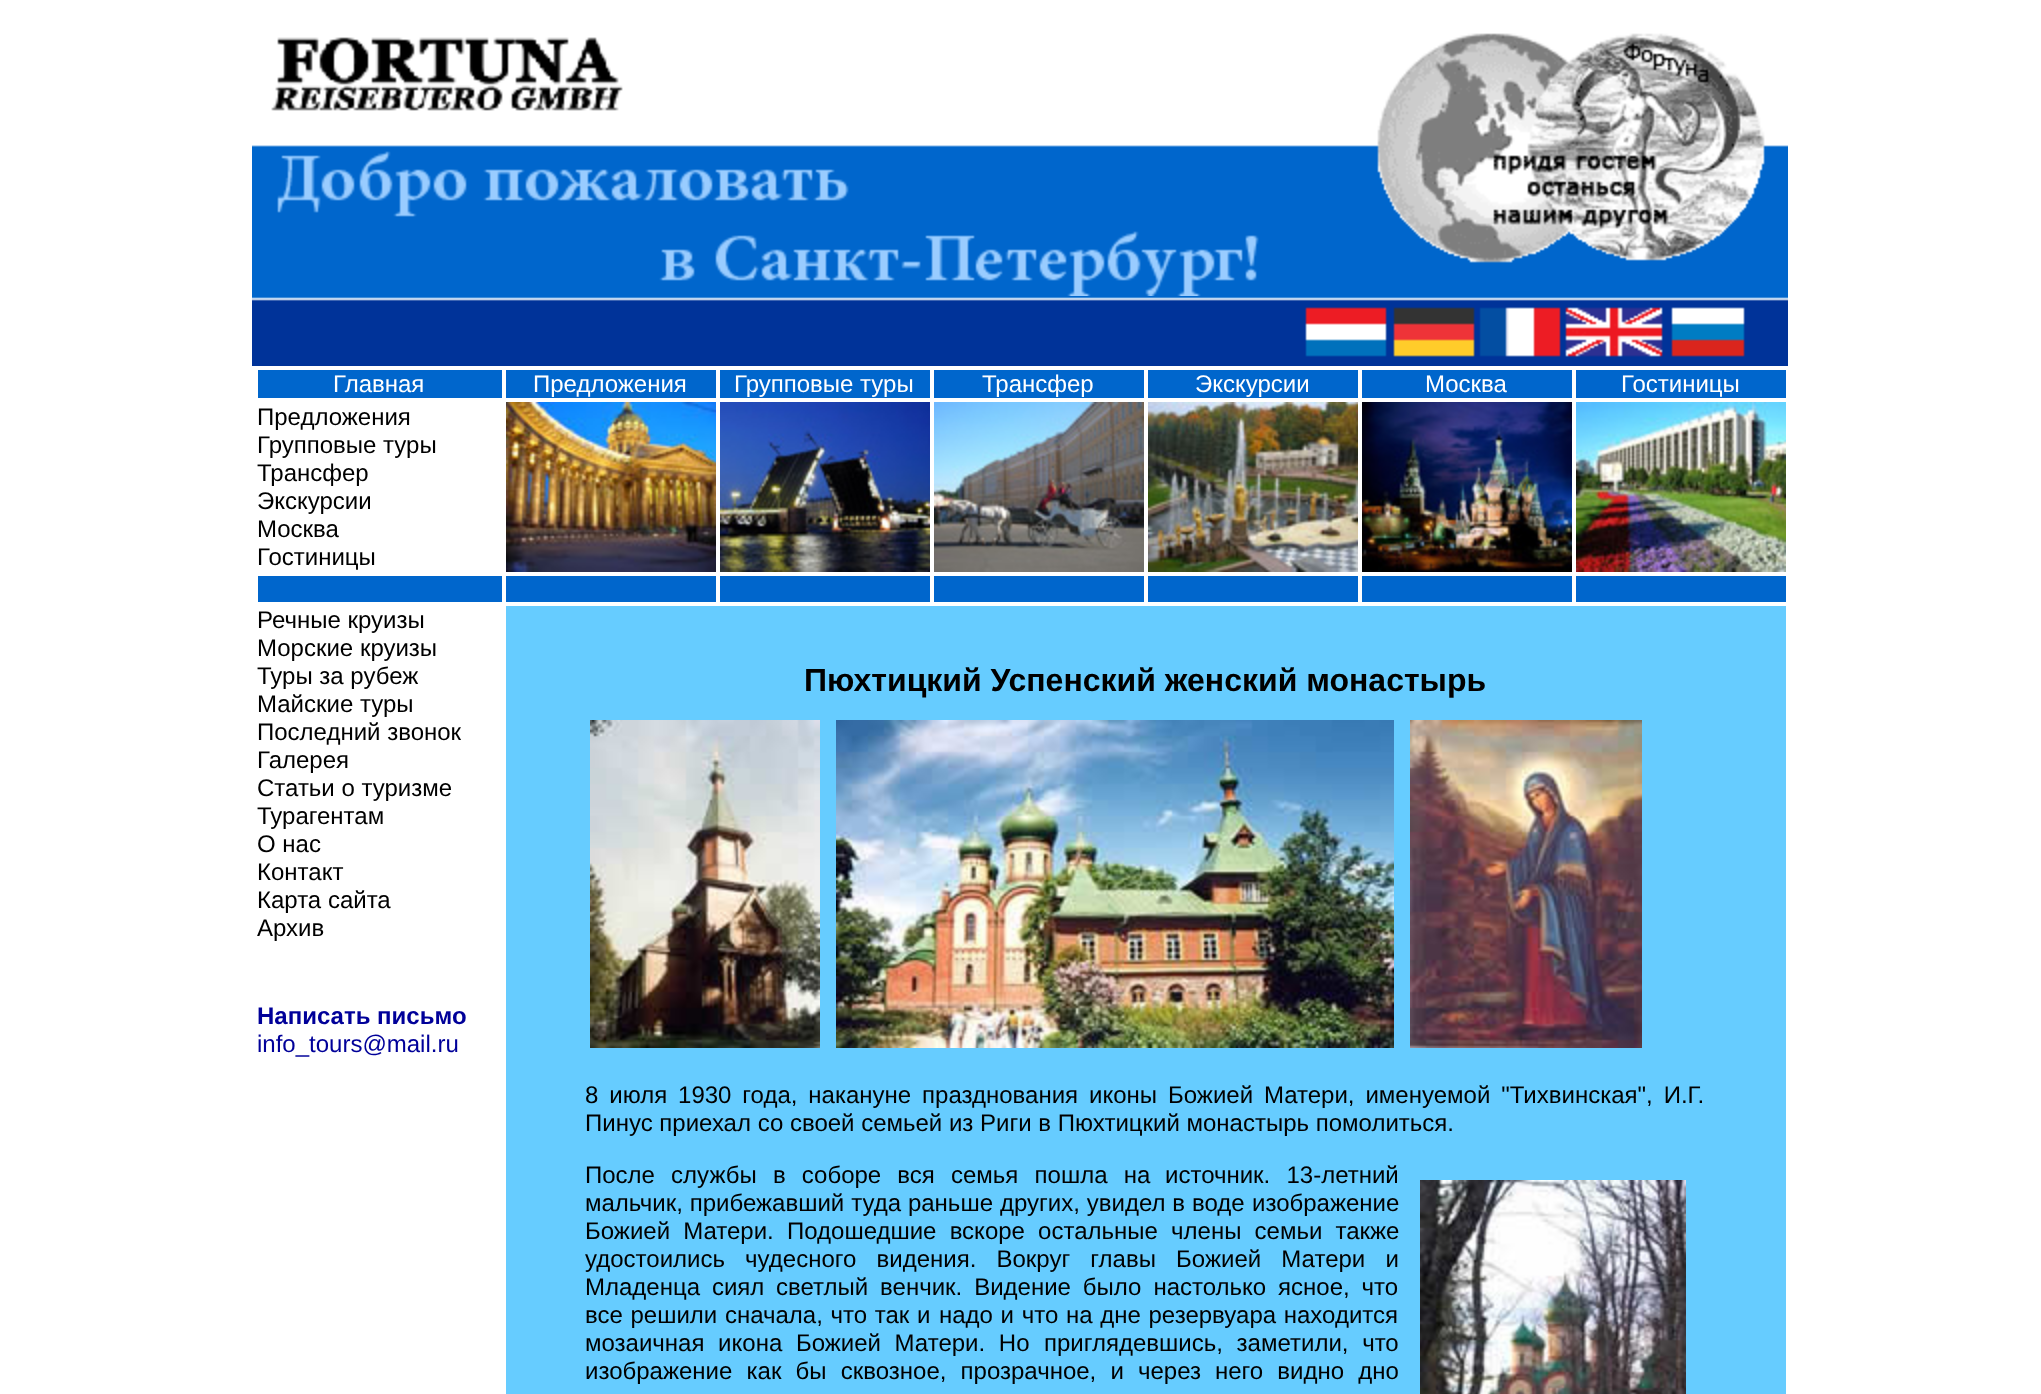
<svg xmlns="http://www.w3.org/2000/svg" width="2041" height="1394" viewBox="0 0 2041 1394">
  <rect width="100%" height="100%" fill="rgb(255,255,255)"/>
  <image x="252" y="37" width="1108" height="259" href="pic1.png"/>
  <image x="1360" y="33" width="428" height="263" href="pic2.png"/>
  <image x="252" y="296" width="1028" height="70" href="pic3.png"/>
  <image x="1280" y="296" width="110" height="70" href="pic4.png"/>
  <image x="1390" y="296" width="88" height="70" href="pic5.png"/>
  <image x="1478" y="296" width="86" height="70" href="pic6.png"/>
  <image x="1564" y="296" width="102" height="70" href="pic7.png"/>
  <image x="1666" y="296" width="122" height="70" href="pic8.png"/>
  <rect x="258" y="370" width="1528" height="232" fill="rgb(0,102,204)"/>
  <rect x="257" y="369" width="246" height="30" fill="none" stroke="rgb(255,255,255)" stroke-width="2"/>
  <text x="333" y="392" font-family="Liberation Sans" font-size="24" fill="rgb(255,255,255)">Главная</text>
  <rect x="505" y="369" width="212" height="30" fill="none" stroke="rgb(255,255,255)" stroke-width="2"/>
  <text x="533" y="392" font-family="Liberation Sans" font-size="24" fill="rgb(255,255,255)">Предложения</text>
  <rect x="719" y="369" width="212" height="30" fill="none" stroke="rgb(255,255,255)" stroke-width="2"/>
  <text x="734" y="392" font-family="Liberation Sans" font-size="24" fill="rgb(255,255,255)">Групповые туры</text>
  <rect x="933" y="369" width="212" height="30" fill="none" stroke="rgb(255,255,255)" stroke-width="2"/>
  <text x="982" y="392" font-family="Liberation Sans" font-size="24" fill="rgb(255,255,255)">Трансфер</text>
  <rect x="1147" y="369" width="212" height="30" fill="none" stroke="rgb(255,255,255)" stroke-width="2"/>
  <text x="1195" y="392" font-family="Liberation Sans" font-size="24" fill="rgb(255,255,255)">Экскурсии</text>
  <rect x="1361" y="369" width="212" height="30" fill="none" stroke="rgb(255,255,255)" stroke-width="2"/>
  <text x="1425" y="392" font-family="Liberation Sans" font-size="24" fill="rgb(255,255,255)">Москва</text>
  <rect x="1575" y="369" width="212" height="30" fill="none" stroke="rgb(255,255,255)" stroke-width="2"/>
  <text x="1621" y="392" font-family="Liberation Sans" font-size="24" fill="rgb(255,255,255)">Гостиницы</text>
  <rect x="258" y="400" width="246" height="174" fill="rgb(255,255,255)"/>
  <g font-family="Liberation Sans" font-size="24" fill="rgb(0,0,0)">
    <text>
      <tspan x="257" y="425">Предложения</tspan>
      <tspan x="257" y="453">Групповые туры</tspan>
      <tspan x="257" y="481">Трансфер</tspan>
      <tspan x="257" y="509">Экскурсии</tspan>
      <tspan x="257" y="537">Москва</tspan>
      <tspan x="257" y="565">Гостиницы</tspan>
    </text>
  </g>
  <rect x="505" y="401" width="212" height="172" fill="none" stroke="rgb(255,255,255)" stroke-width="2"/>
  <image x="506" y="402" width="210" height="170" href="pic9.png"/>
  <rect x="719" y="401" width="212" height="172" fill="none" stroke="rgb(255,255,255)" stroke-width="2"/>
  <image x="720" y="402" width="210" height="170" href="pic10.png"/>
  <rect x="933" y="401" width="212" height="172" fill="none" stroke="rgb(255,255,255)" stroke-width="2"/>
  <image x="934" y="402" width="210" height="170" href="pic11.png"/>
  <rect x="1147" y="401" width="212" height="172" fill="none" stroke="rgb(255,255,255)" stroke-width="2"/>
  <image x="1148" y="402" width="210" height="170" href="pic12.png"/>
  <rect x="1361" y="401" width="212" height="172" fill="none" stroke="rgb(255,255,255)" stroke-width="2"/>
  <image x="1362" y="402" width="210" height="170" href="pic13.png"/>
  <rect x="1575" y="401" width="212" height="172" fill="none" stroke="rgb(255,255,255)" stroke-width="2"/>
  <image x="1576" y="402" width="210" height="170" href="pic14.png"/>
  <rect x="257" y="575" width="246" height="28" fill="none" stroke="rgb(255,255,255)" stroke-width="2"/>
  <rect x="505" y="575" width="212" height="28" fill="none" stroke="rgb(255,255,255)" stroke-width="2"/>
  <rect x="719" y="575" width="212" height="28" fill="none" stroke="rgb(255,255,255)" stroke-width="2"/>
  <rect x="933" y="575" width="212" height="28" fill="none" stroke="rgb(255,255,255)" stroke-width="2"/>
  <rect x="1147" y="575" width="212" height="28" fill="none" stroke="rgb(255,255,255)" stroke-width="2"/>
  <rect x="1361" y="575" width="212" height="28" fill="none" stroke="rgb(255,255,255)" stroke-width="2"/>
  <rect x="1575" y="575" width="212" height="28" fill="none" stroke="rgb(255,255,255)" stroke-width="2"/>
  <g font-family="Liberation Sans" font-size="24" fill="rgb(0,0,0)">
    <text>
      <tspan x="257" y="628">Речные круизы</tspan>
      <tspan x="257" y="656">Морские круизы</tspan>
      <tspan x="257" y="684">Туры за рубеж</tspan>
      <tspan x="257" y="712">Майские туры</tspan>
      <tspan x="257" y="740">Последний звонок</tspan>
      <tspan x="257" y="768">Галерея</tspan>
      <tspan x="257" y="796">Статьи о туризме</tspan>
      <tspan x="257" y="824">Турагентам</tspan>
      <tspan x="257" y="852">О нас</tspan>
      <tspan x="257" y="880">Контакт</tspan>
      <tspan x="257" y="908">Карта сайта</tspan>
      <tspan x="257" y="936">Архив</tspan>
    </text>
  </g>
  <text x="257" y="1024" font-family="Liberation Sans" font-size="24" font-weight="bold" fill="rgb(0,0,153)">Написать письмо</text>
  <text x="257" y="1052" font-family="Liberation Sans" font-size="24" fill="rgb(0,0,153)">info_tours@mail.ru</text>
  <rect x="506" y="606" width="1280" height="788" fill="rgb(102,204,255)"/>
  <text x="804" y="691" font-family="Liberation Sans" font-size="32" font-weight="bold" fill="rgb(0,0,0)">Пюхтицкий Успенский женский монастырь</text>
  <image x="590" y="720" width="230" height="328" href="pic15.png"/>
  <image x="836" y="720" width="558" height="328" href="pic16.png"/>
  <image x="1410" y="720" width="232" height="328" href="pic17.png"/>
  <g font-family="Liberation Sans" font-size="24" fill="rgb(0,0,0)">
    <text x="585" y="1103" word-spacing="4.25">8 июля 1930 года, накануне празднования иконы</text>
    <text x="1168" y="1103" word-spacing="4.25">Божией Матери, именуемой "Тихвинская", И.Г.</text>
    <text x="585" y="1131">Пинус приехал со своей семьей из Риги в Пюхтицкий монастырь помолиться.</text>
    <text x="585" y="1183" word-spacing="9.5">После службы в соборе вся семья пошла на</text>
    <text x="1165" y="1183" word-spacing="9.5">источник. 13-летний</text>
    <text x="585" y="1211" word-spacing="0.25">мальчик, прибежавший туда раньше других, увидел в воде</text>
    <text x="1252" y="1211">изображение</text>
    <text>
      <tspan x="585" y="1239" word-spacing="6.5">Божией Матери. Подошедшие вскоре остальные члены семьи также</tspan>
      <tspan x="585" y="1267" word-spacing="13.5">удостоились чудесного видения. Вокруг главы Божией Матери и</tspan>
      <tspan x="585" y="1295" word-spacing="5.25">Младенца сиял</tspan>
    </text>
    <text x="776" y="1295" word-spacing="5.25">светлый венчик. Видение было настолько ясное, что</text>
    <text x="585" y="1323" word-spacing="1">все решили сначала, что так и</text>
    <text x="939" y="1323" word-spacing="1">надо и что на дне резервуара находится</text>
    <text x="585" y="1351" word-spacing="7">мозаичная икона Божией Матери. Но</text>
    <text x="1044" y="1351" word-spacing="7">приглядевшись, заметили, что</text>
    <text x="585" y="1379" word-spacing="7.5">изображение как бы сквозное, прозрачное, и через</text>
    <text x="1215" y="1379" word-spacing="7.5">него видно дно</text>
  </g>
  <image x="1420" y="1180" width="266" height="214" href="pic18.png"/>
</svg>
